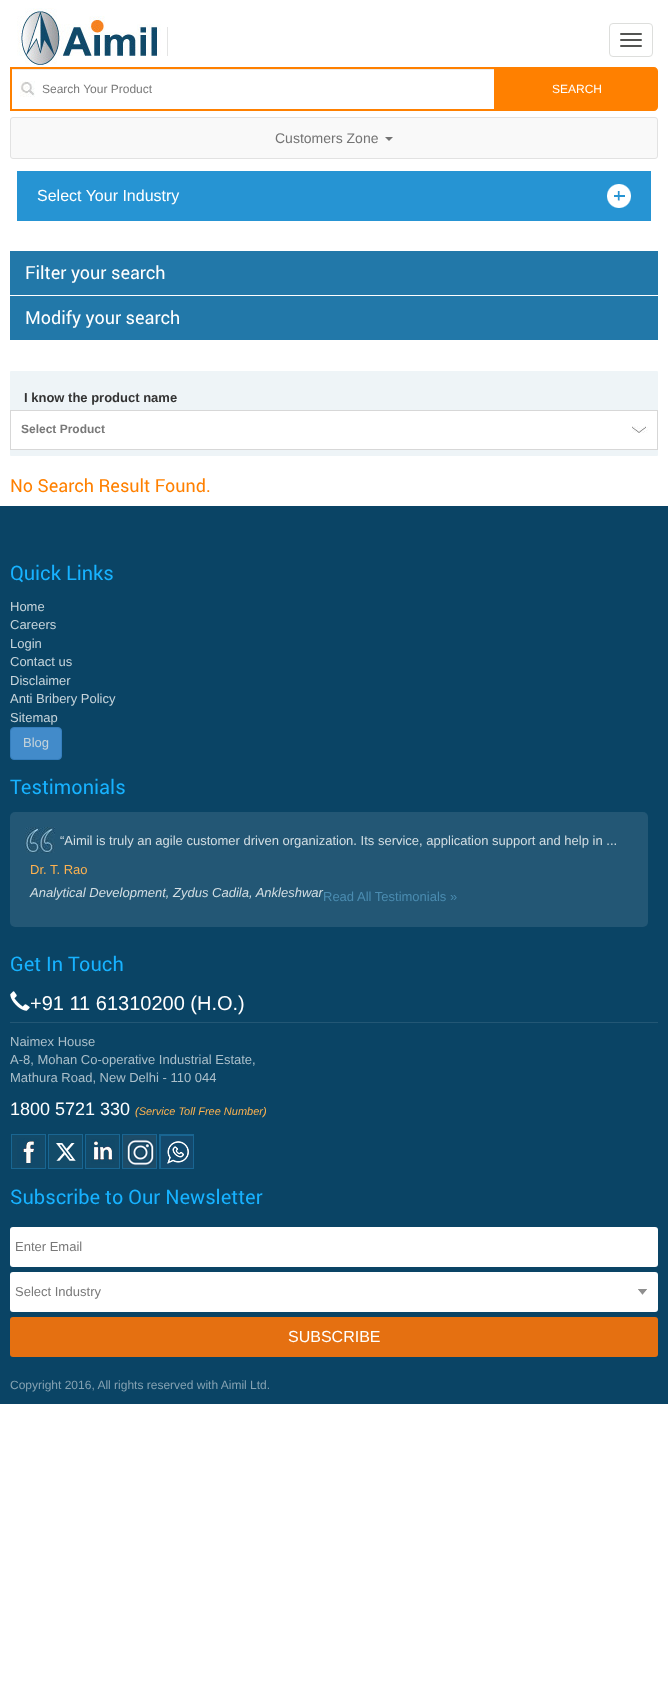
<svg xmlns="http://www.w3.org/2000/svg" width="668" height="1689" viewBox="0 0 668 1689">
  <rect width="100%" height="100%" fill="rgb(255,255,255)"/>
  <rect x="609.5" y="23.5" width="43" height="33" rx="3.5" fill="none" stroke="rgb(221,222,220)"/>
  <rect x="620" y="33" width="22" height="2" rx="1" fill="rgb(83,84,82)"/>
  <rect x="620" y="39" width="22" height="2" rx="1" fill="rgb(83,84,82)"/>
  <rect x="620" y="45" width="22" height="2" rx="1" fill="rgb(83,84,82)"/>
  <image x="17" y="8" width="151" height="59" href="pic1.png"/>
  <image x="20" y="81" width="15" height="16" href="pic2.png"/>
  <rect x="12" y="69" width="482" height="1" fill="rgb(236,236,236)"/>
  <rect x="11" y="68" width="484" height="42" fill="none" stroke="rgb(255,128,0)" stroke-width="2"/>
  <text x="42" y="93" font-family="Liberation Sans" font-size="12" fill="rgb(121,121,121)">Search Your Product</text>
  <path d="M496 67H654C656 67 658 69 658 71V107C658 109 656 111 654 111H496Z" fill="rgb(255,128,0)"/>
  <text x="552" y="93" font-family="Liberation Sans" font-size="12" fill="rgb(255,255,255)">SEARCH</text>
  <rect x="10.5" y="117.5" width="647" height="41" rx="2.5" fill="rgb(249,249,249)" stroke="rgb(226,226,226)"/>
  <text x="275" y="143" font-family="Liberation Sans" font-size="14" fill="rgb(115,115,115)">Customers Zone</text>
  <path d="M385 137H393L389 141Z" fill="rgb(115,115,115)"/>
  <rect x="17" y="171" width="634" height="50" fill="rgb(38,148,211)"/>
  <image x="607" y="184" width="24" height="24" href="pic3.png"/>
  <text x="37" y="201" font-family="Liberation Sans" font-size="16" fill="rgb(255,255,255)">Select Your Industry</text>
  <rect x="10" y="251" width="648" height="44" fill="rgb(34,120,169)"/>
  <text x="25" y="279" font-family="Roboto" font-size="18" fill="rgb(255,255,255)">Filter your search</text>
  <rect x="10" y="296" width="648" height="44" fill="rgb(34,120,169)"/>
  <text x="25" y="324" font-family="Roboto" font-size="18" fill="rgb(255,255,255)">Modify your search</text>
  <rect x="10" y="371" width="648" height="85" rx="1" fill="rgb(238,244,247)"/>
  <text x="24" y="402" font-family="Liberation Sans" font-size="13" font-weight="bold" fill="rgb(51,51,51)">I know the product name</text>
  <rect x="11" y="411" width="646" height="38" fill="rgb(255,255,255)"/>
  <image x="632" y="426" width="16" height="7" href="pic4.png"/>
  <rect x="10.5" y="410.5" width="647" height="39" fill="none" stroke="rgb(215,215,215)"/>
  <text x="21" y="433" font-family="Liberation Sans" font-size="12" font-weight="bold" fill="rgb(121,121,121)">Select Product</text>
  <text x="10" y="492" font-family="Roboto" font-size="18" fill="rgb(255,128,0)">No Search Result Found.</text>
  <rect x="0" y="506" width="668" height="898" fill="rgb(10,68,101)"/>
  <text x="10" y="580" font-family="Roboto" font-size="20" fill="rgb(23,178,255)">Quick Links</text>
  <g font-family="Liberation Sans" font-size="13" fill="rgb(198,212,219)">
    <text>
      <tspan x="10" y="611">Home</tspan>
      <tspan x="10" y="629">Careers</tspan>
      <tspan x="10" y="648">Login</tspan>
      <tspan x="10" y="666">Contact us</tspan>
      <tspan x="10" y="685">Disclaimer</tspan>
      <tspan x="10" y="703">Anti Bribery Policy</tspan>
      <tspan x="10" y="722">Sitemap</tspan>
    </text>
  </g>
  <rect x="10.5" y="727.5" width="51" height="32" rx="3.5" fill="rgb(66,139,202)" stroke="rgb(53,126,189)"/>
  <text x="23" y="747" font-family="Liberation Sans" font-size="13" fill="rgb(198,212,219)">Blog</text>
  <text x="10" y="794" font-family="Roboto" font-size="20" fill="rgb(23,178,255)">Testimonials</text>
  <rect x="10" y="812" width="638" height="115" rx="5" fill="rgb(35,87,117)"/>
  <image x="25" y="827" width="30" height="26" href="pic5.png"/>
  <text x="60" y="845" font-family="Liberation Sans" font-size="13" fill="rgb(211,222,227)">“Aimil is truly an agile customer driven organization. Its service, application support and help in ...</text>
  <text x="30" y="874" font-family="Liberation Sans" font-size="13" fill="rgb(253,178,80)">Dr. T. Rao</text>
  <text x="30" y="897" font-family="Liberation Sans" font-size="13" font-style="italic" fill="rgb(211,222,227)">Analytical Development, Zydus Cadila, Ankleshwar</text>
  <text x="323" y="901" font-family="Liberation Sans" font-size="13" fill="rgb(74,140,177)">Read All Testimonials »</text>
  <text x="10" y="971" font-family="Roboto" font-size="20" fill="rgb(23,178,255)">Get In Touch</text>
  <rect x="10" y="1022" width="648" height="1" fill="rgb(35,87,117)"/>
  <image x="10" y="991" width="20" height="20" href="pic6.png"/>
  <text x="30" y="1010" font-family="Liberation Sans" font-size="20" fill="rgb(255,255,255)">+91 11 61310200 (H.O.)</text>
  <g font-family="Liberation Sans" font-size="13" fill="rgb(171,191,202)">
    <text>
      <tspan x="10" y="1046">Naimex House</tspan>
      <tspan x="10" y="1064">A-8, Mohan Co-operative Industrial Estate,</tspan>
      <tspan x="10" y="1082">Mathura Road, New Delhi - 110 044</tspan>
    </text>
  </g>
  <text x="10" y="1115" font-family="Liberation Sans" font-size="18" fill="rgb(255,255,255)">1800 5721 330</text>
  <text x="135" y="1115" font-family="Liberation Sans" font-size="11" font-style="italic" fill="rgb(253,178,80)">(Service Toll Free Number)</text>
  <image x="11" y="1134" width="35" height="35" href="pic7.png"/>
  <image x="48" y="1134" width="35" height="35" href="pic8.png"/>
  <image x="85" y="1134" width="35" height="35" href="pic9.png"/>
  <image x="123" y="1135" width="33" height="33" href="pic10.png"/>
  <rect x="122.5" y="1134.5" width="34" height="34" fill="none" stroke="rgb(25,101,146)"/>
  <image x="160" y="1135" width="33" height="33" href="pic11.png"/>
  <rect x="159.5" y="1134.5" width="34" height="34" fill="none" stroke="rgb(25,101,146)"/>
  <text x="10" y="1204" font-family="Roboto" font-size="20" fill="rgb(23,178,255)">Subscribe to Our Newsletter</text>
  <rect x="10" y="1227" width="648" height="40" rx="3" fill="rgb(255,255,255)"/>
  <text x="15" y="1251" font-family="Liberation Sans" font-size="13" fill="rgb(121,121,121)">Enter Email</text>
  <rect x="10" y="1272" width="648" height="40" rx="3" fill="rgb(255,255,255)"/>
  <image x="638" y="1289" width="9" height="6" href="pic12.png"/>
  <text x="15" y="1296" font-family="Liberation Sans" font-size="13" fill="rgb(121,121,121)">Select Industry</text>
  <rect x="10" y="1317" width="648" height="40" rx="3" fill="rgb(229,112,17)"/>
  <text x="288" y="1342" font-family="Liberation Sans" font-size="16" fill="rgb(255,255,255)">SUBSCRIBE</text>
  <text x="10" y="1389" font-family="Liberation Sans" font-size="12" fill="rgb(133,162,178)">Copyright 2016, All rights reserved with Aimil Ltd.</text>
</svg>
